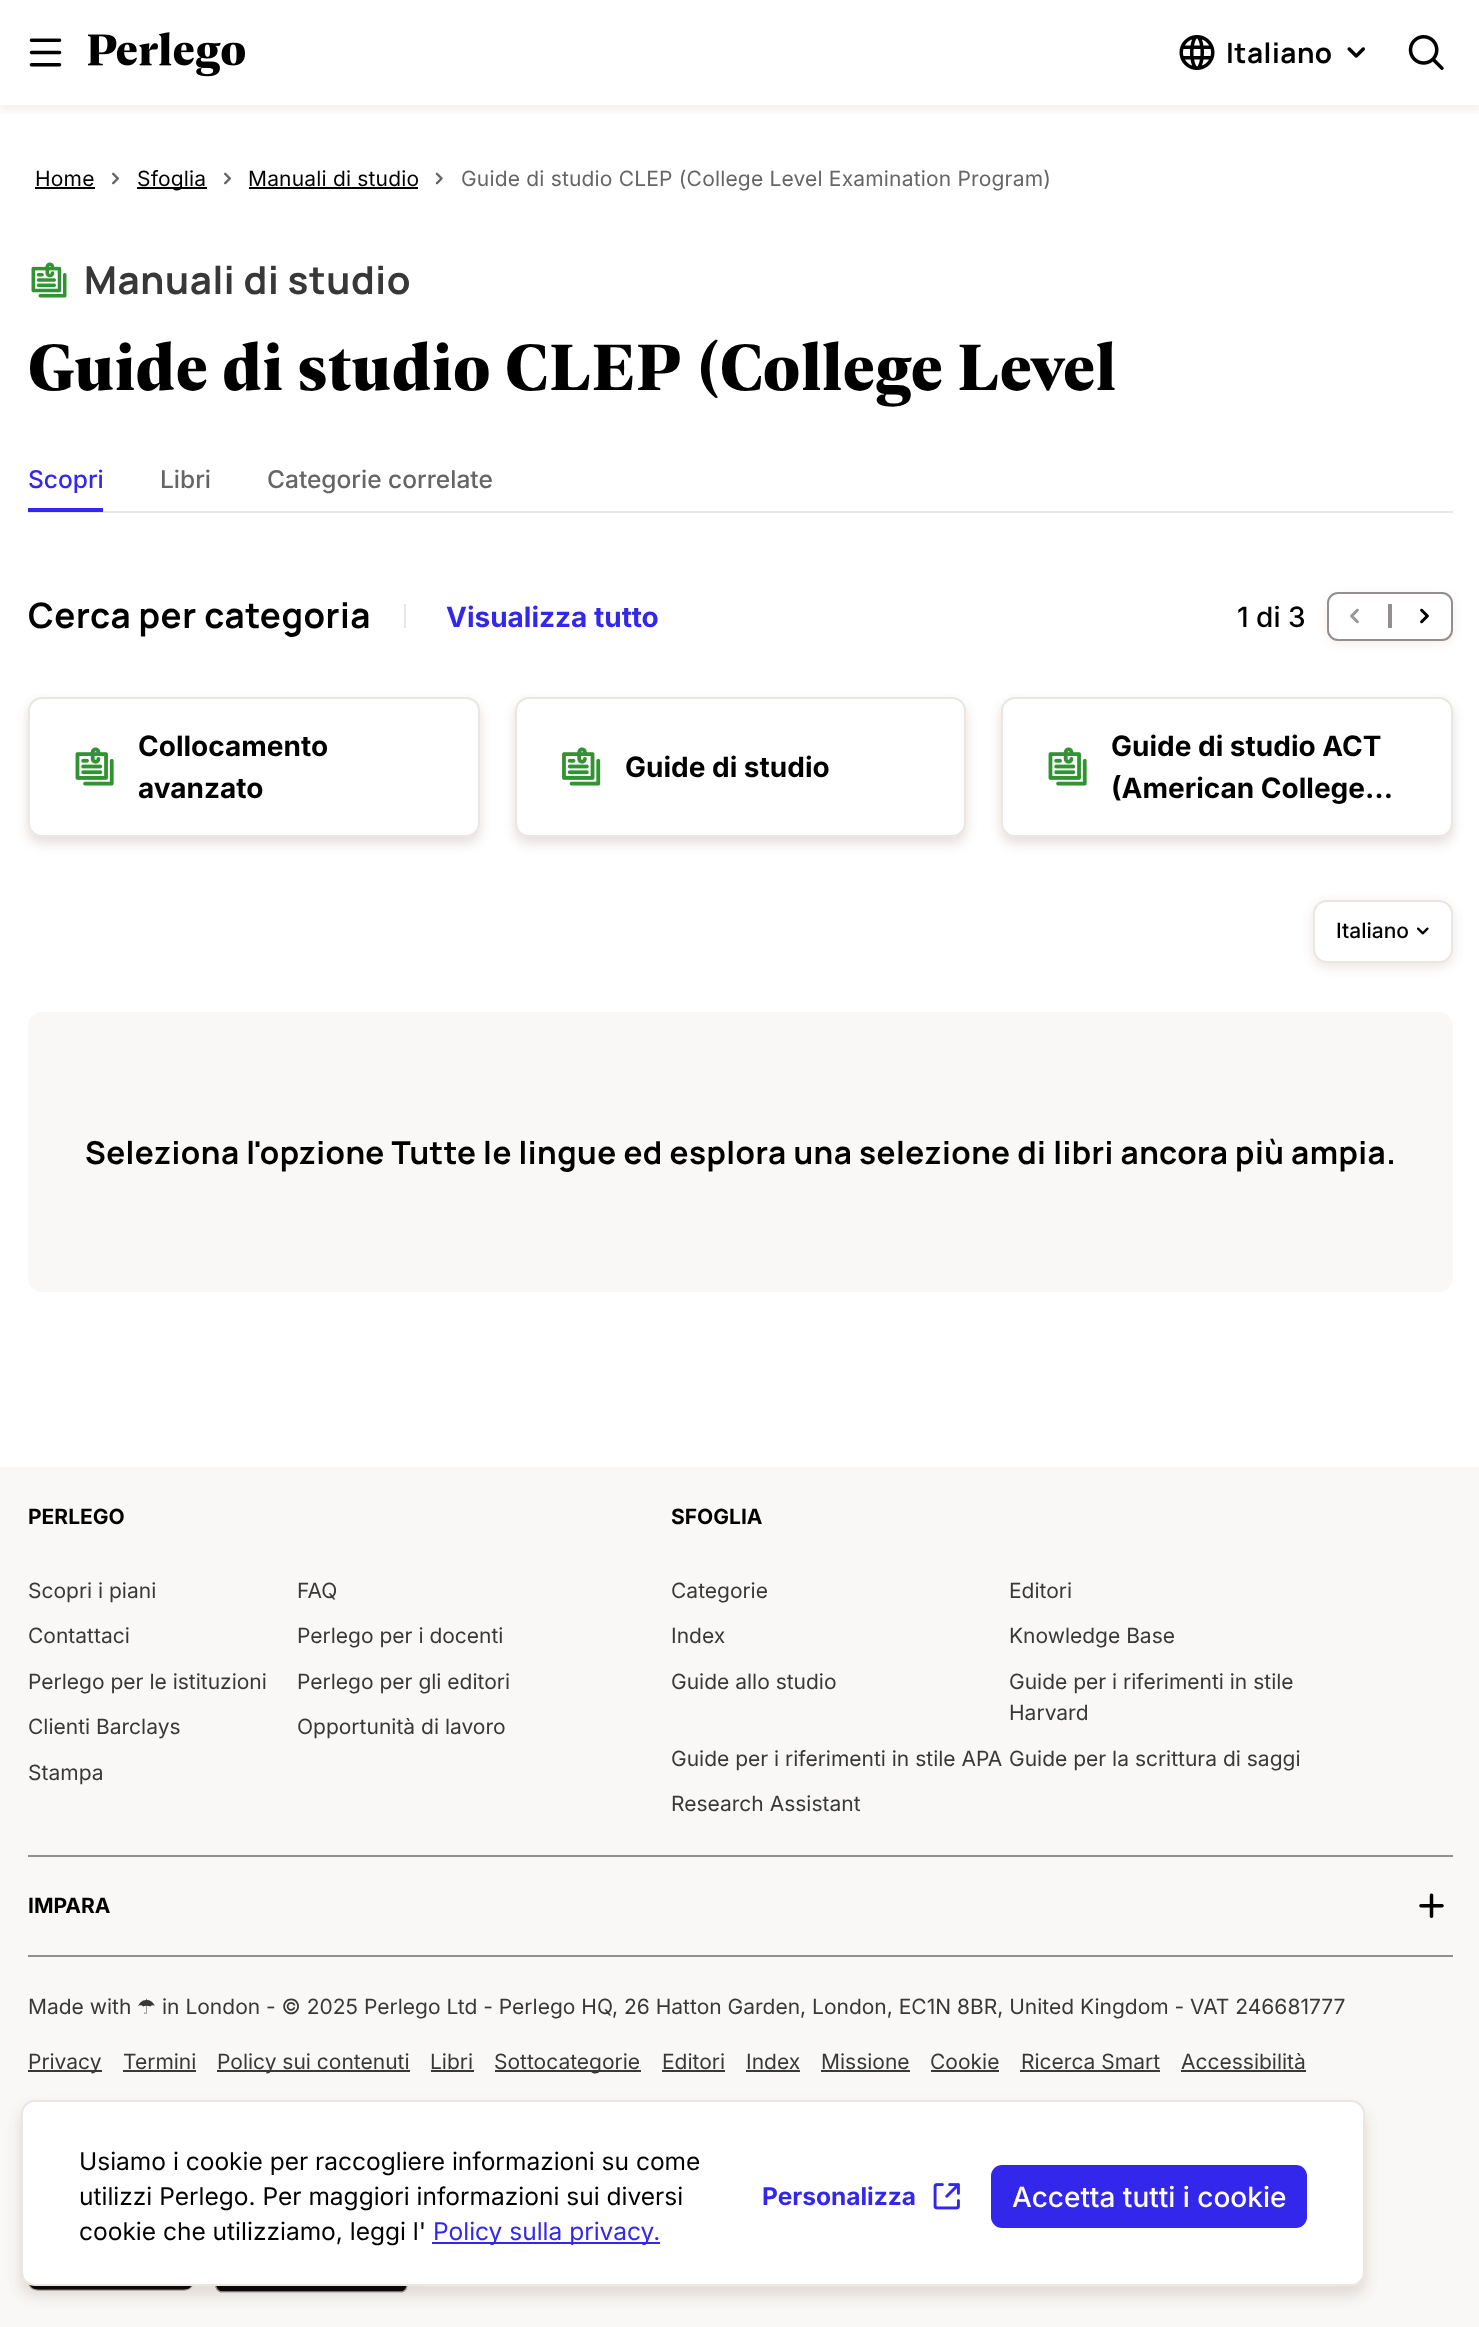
<svg xmlns="http://www.w3.org/2000/svg" width="1479" height="2327" viewBox="0 0 1479 2327">
  <defs>
    <clipPath id="clip1"><rect x="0" y="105" width="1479" height="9"/></clipPath>
    <clipPath id="clip2"><path d="M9 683H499V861H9ZM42 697H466C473.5 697 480 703.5 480 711V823C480 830.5 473.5 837 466 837H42C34.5 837 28 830.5 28 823V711C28 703.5 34.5 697 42 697Z" clip-rule="evenodd"/></clipPath>
    <clipPath id="clip3"><path d="M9 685H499V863H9ZM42 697H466C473.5 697 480 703.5 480 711V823C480 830.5 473.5 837 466 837H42C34.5 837 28 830.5 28 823V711C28 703.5 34.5 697 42 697Z" clip-rule="evenodd"/></clipPath>
    <clipPath id="clip4"><path d="M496 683H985V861H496ZM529 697H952C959.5 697 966 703.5 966 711V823C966 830.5 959.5 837 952 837H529C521.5 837 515 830.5 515 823V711C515 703.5 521.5 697 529 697Z" clip-rule="evenodd"/></clipPath>
    <clipPath id="clip5"><path d="M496 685H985V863H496ZM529 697H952C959.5 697 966 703.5 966 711V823C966 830.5 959.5 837 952 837H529C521.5 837 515 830.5 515 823V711C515 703.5 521.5 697 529 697Z" clip-rule="evenodd"/></clipPath>
    <clipPath id="clip6"><path d="M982 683H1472V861H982ZM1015 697H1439C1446.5 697 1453 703.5 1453 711V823C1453 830.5 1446.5 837 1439 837H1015C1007.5 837 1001 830.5 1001 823V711C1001 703.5 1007.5 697 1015 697Z" clip-rule="evenodd"/></clipPath>
    <clipPath id="clip7"><path d="M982 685H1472V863H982ZM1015 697H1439C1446.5 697 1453 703.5 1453 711V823C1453 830.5 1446.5 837 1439 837H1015C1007.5 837 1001 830.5 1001 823V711C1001 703.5 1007.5 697 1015 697Z" clip-rule="evenodd"/></clipPath>
  </defs>
  <rect width="100%" height="100%" fill="rgb(255,255,255)"/>
  <g clip-path="url(#clip1)">
    <rect x="0" y="4" width="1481" height="105" fill="rgba(102,54,27,0.1)" filter="blur(6px)"/>
  </g>
  <image x="29" y="38" width="33" height="29" href="pic1.png"/>
  <image x="88" y="32" width="157" height="45" href="pic2.png"/>
  <image x="1179" y="35" width="36" height="35" href="pic3.png"/>
  <text x="1226" y="63" font-family="Manrope" font-size="28" font-weight="bold" letter-spacing="0.5" fill="rgb(0,0,0)">Italiano</text>
  <image x="1347" y="47" width="18" height="11" href="pic4.png"/>
  <image x="1408" y="35" width="36" height="35" href="pic5.png"/>
  <text x="35" y="186" font-family="Inter" font-size="21" letter-spacing="0.18" fill="rgb(0,0,0)">Home</text>
  <rect x="35" y="187" width="60" height="2" fill="rgb(0,0,0)"/>
  <image x="112" y="172" width="7" height="13" href="pic6.png"/>
  <rect x="137" y="187" width="70" height="2" fill="rgb(0,0,0)"/>
  <text x="137" y="186" font-family="Inter" font-size="21" letter-spacing="0.18" fill="rgb(0,0,0)">Sfoglia</text>
  <image x="224" y="172" width="7" height="13" href="pic6.png"/>
  <text x="248" y="186" font-family="Inter" font-size="21" letter-spacing="0.18" fill="rgb(0,0,0)">Manuali di studio</text>
  <rect x="249" y="187" width="169" height="2" fill="rgb(0,0,0)"/>
  <image x="435" y="172" width="8" height="13" href="pic7.png"/>
  <text x="461" y="186" font-family="Inter" font-size="21" letter-spacing="0.18" fill="rgb(102,101,101)">Guide di studio CLEP (College Level Examination Program)</text>
  <image x="31" y="262" width="36" height="36" href="pic8.png"/>
  <text x="84" y="294" font-family="Manrope" font-size="38.5" font-weight="bold" letter-spacing="0.6" fill="rgb(56,56,56)">Manuali di studio</text>
  <text x="28" y="390" font-family="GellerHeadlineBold" font-size="70" font-weight="bold" letter-spacing="0.7" fill="rgb(0,0,0)">Guide di studio CLEP (College Level</text>
  <rect x="28" y="511" width="1425" height="2" fill="rgb(233,231,227)"/>
  <text x="28" y="488" font-family="Inter" font-size="24.5" font-weight="500" fill="rgb(51,39,236)">Scopri</text>
  <rect x="28" y="508" width="75" height="4" fill="rgb(51,39,236)"/>
  <g font-family="Inter" font-size="24.5" font-weight="500" fill="rgb(102,101,101)">
    <text x="160" y="488">Libri</text>
    <text x="267" y="488">Categorie correlate</text>
  </g>
  <text x="28" y="628" font-family="Manrope" font-size="35" font-weight="bold" letter-spacing="0.5" fill="rgb(0,0,0)">Cerca per categoria</text>
  <rect x="404" y="604" width="2" height="24" fill="rgb(233,231,227)"/>
  <text x="446" y="627" font-family="Inter" font-size="28" font-weight="bold" fill="rgb(51,39,236)">Visualizza tutto</text>
  <text x="1237" y="627" font-family="Inter" font-size="28" font-weight="500" fill="rgb(0,0,0)">1 di 3</text>
  <rect x="1327" y="595" width="126" height="49" rx="11" fill="rgba(144,48,7,0.08)" filter="blur(5px)"/>
  <rect x="1328" y="593" width="124" height="47" rx="10" fill="rgb(255,255,255)" stroke="rgb(148,143,143)" stroke-width="2"/>
  <image x="1350" y="608" width="9" height="16" href="pic9.png"/>
  <rect x="1388" y="604" width="4" height="24" fill="rgb(148,143,143)"/>
  <image x="1420" y="608" width="9" height="16" href="pic10.png"/>
  <g clip-path="url(#clip2)">
    <rect x="28" y="702" width="452" height="140" rx="14" fill="rgba(144,48,7,0.08)" filter="blur(6px)"/>
  </g>
  <g clip-path="url(#clip3)">
    <rect x="28" y="704" width="452" height="140" rx="14" fill="rgba(78,78,78,0.1)" filter="blur(6px)"/>
  </g>
  <rect x="29" y="698" width="450" height="138" rx="13" fill="none" stroke="rgb(233,231,227)" stroke-width="2"/>
  <image x="75" y="747" width="39" height="39" href="pic11.png"/>
  <g font-family="Inter" font-size="28" font-weight="bold" fill="rgb(0,0,0)">
    <text>
      <tspan x="138" y="756">Collocamento</tspan>
      <tspan x="138" y="798">avanzato</tspan>
    </text>
  </g>
  <g clip-path="url(#clip4)">
    <rect x="515" y="702" width="451" height="140" rx="14" fill="rgba(144,48,7,0.08)" filter="blur(6px)"/>
  </g>
  <g clip-path="url(#clip5)">
    <rect x="515" y="704" width="451" height="140" rx="14" fill="rgba(78,78,78,0.1)" filter="blur(6px)"/>
  </g>
  <rect x="516" y="698" width="449" height="138" rx="13" fill="none" stroke="rgb(233,231,227)" stroke-width="2"/>
  <image x="562" y="747" width="39" height="39" href="pic12.png"/>
  <text x="625" y="777" font-family="Inter" font-size="28" font-weight="bold" fill="rgb(0,0,0)">Guide di studio</text>
  <g clip-path="url(#clip6)">
    <rect x="1001" y="702" width="452" height="140" rx="14" fill="rgba(144,48,7,0.08)" filter="blur(6px)"/>
  </g>
  <g clip-path="url(#clip7)">
    <rect x="1001" y="704" width="452" height="140" rx="14" fill="rgba(78,78,78,0.1)" filter="blur(6px)"/>
  </g>
  <rect x="1002" y="698" width="450" height="138" rx="13" fill="none" stroke="rgb(233,231,227)" stroke-width="2"/>
  <image x="1048" y="747" width="39" height="39" href="pic11.png"/>
  <g font-family="Inter" font-size="28" font-weight="bold" fill="rgb(0,0,0)">
    <text>
      <tspan x="1111" y="756">Guide di studio ACT</tspan>
      <tspan x="1111" y="798">(American College…</tspan>
    </text>
  </g>
  <rect x="1313" y="903" width="140" height="63" rx="14" fill="rgba(144,48,7,0.08)" filter="blur(6px)"/>
  <rect x="1313" y="905" width="140" height="63" rx="14" fill="rgba(78,78,78,0.06)" filter="blur(6px)"/>
  <rect x="1314" y="901" width="138" height="61" rx="13" fill="rgb(255,255,255)" stroke="rgb(233,231,227)" stroke-width="2"/>
  <text x="1336" y="938" font-family="Inter" font-size="21" font-weight="500" fill="rgb(0,0,0)">Italiano</text>
  <image x="1416" y="927" width="13" height="8" href="pic13.png"/>
  <rect x="28" y="1012" width="1425" height="280" rx="14" fill="rgb(249,248,246)"/>
  <text x="85" y="1164" font-family="Manrope" font-size="31.5" font-weight="bold" letter-spacing="0.45" fill="rgb(0,0,0)">Seleziona l'opzione Tutte le lingue ed esplora una selezione di libri ancora più ampia.</text>
  <rect x="0" y="1467" width="1479" height="860" fill="rgb(249,248,246)"/>
  <image x="28" y="2284" width="165" height="7" href="pic16.png"/>
  <image x="215" y="2286" width="193" height="7" href="pic17.png"/>
  <rect x="19" y="2107" width="1348" height="189" rx="16" fill="rgba(144,48,7,0.08)" filter="blur(7px)"/>
  <rect x="21" y="2111" width="1344" height="185" rx="14" fill="rgba(78,78,78,0.08)" filter="blur(7px)"/>
  <rect x="22" y="2101" width="1342" height="184" rx="13" fill="rgb(255,255,255)" stroke="rgb(233,231,227)" stroke-width="2"/>
  <g font-family="Inter" font-size="24.5" fill="rgb(0,0,0)">
    <text>
      <tspan x="79" y="2170">Usiamo i cookie per raccogliere informazioni su come</tspan>
      <tspan x="79" y="2205">utilizzi Perlego. Per maggiori informazioni sui diversi</tspan>
      <tspan x="79" y="2240">cookie che utilizziamo, leggi l'</tspan>
    </text>
  </g>
  <rect x="432" y="2242" width="228" height="2" fill="rgb(51,39,236)"/>
  <text x="433" y="2240" font-family="Inter" font-size="24.5" fill="rgb(51,39,236)">Policy sulla privacy.</text>
  <text x="762" y="2205" font-family="Inter" font-size="24.5" font-weight="bold" fill="rgb(51,39,236)">Personalizza</text>
  <image x="933" y="2183" width="27" height="27" href="pic14.png"/>
  <rect x="991" y="2165" width="316" height="63" rx="11" fill="rgb(51,39,236)"/>
  <text x="1012" y="2207" font-family="Inter" font-size="28" font-weight="500" fill="rgb(255,255,255)">Accetta tutti i cookie</text>
  <text x="28" y="1524" font-family="Inter" font-size="21" font-weight="bold" fill="rgb(0,0,0)">PERLEGO</text>
  <g font-family="Inter" font-size="21" fill="rgb(56,56,56)">
    <text x="28" y="1598">Scopri i piani</text>
    <text x="297" y="1598">FAQ</text>
    <text x="28" y="1643">Contattaci</text>
    <text x="297" y="1643">Perlego per i docenti</text>
    <text x="28" y="1689">Perlego per le istituzioni</text>
    <text x="297" y="1689">Perlego per gli editori</text>
    <text x="28" y="1734">Clienti Barclays</text>
    <text x="297" y="1734">Opportunità di lavoro</text>
    <text x="28" y="1780">Stampa</text>
  </g>
  <text x="671" y="1524" font-family="Inter" font-size="21" font-weight="bold" fill="rgb(0,0,0)">SFOGLIA</text>
  <g font-family="Inter" font-size="21" fill="rgb(56,56,56)">
    <text x="671" y="1598">Categorie</text>
    <text x="1009" y="1598">Editori</text>
    <text x="671" y="1643">Index</text>
    <text x="1009" y="1643">Knowledge Base</text>
    <text x="671" y="1689">Guide allo studio</text>
    <text>
      <tspan x="1009" y="1689">Guide per i riferimenti in stile</tspan>
      <tspan x="1009" y="1720">Harvard</tspan>
    </text>
    <text x="671" y="1766">Guide per i riferimenti in stile APA</text>
    <text x="1009" y="1766">Guide per la scrittura di saggi</text>
    <text x="671" y="1811">Research Assistant</text>
  </g>
  <rect x="28" y="1855" width="1425" height="2" fill="rgb(148,143,143)"/>
  <rect x="28" y="1955" width="1425" height="2" fill="rgb(148,143,143)"/>
  <text x="28" y="1913" font-family="Inter" font-size="21" font-weight="bold" fill="rgb(0,0,0)">IMPARA</text>
  <image x="1419" y="1893" width="25" height="25" href="pic15.png"/>
  <text x="28" y="2014" font-family="Inter" font-size="21" fill="rgb(56,56,56)">Made with</text>
  <text x="137" y="2014" font-family="DejaVu Sans" font-size="21" fill="rgb(56,56,56)">☂︎</text>
  <text x="162" y="2014" font-family="Inter" font-size="21" fill="rgb(56,56,56)">in London - © 2025 Perlego Ltd - Perlego HQ, 26 Hatton Garden, London, EC1N 8BR, United Kingdom - VAT 246681777</text>
  <rect x="28" y="2070" width="74" height="2" fill="rgb(56,56,56)"/>
  <g font-family="Inter" font-size="21" fill="rgb(56,56,56)">
    <text x="28" y="2069">Privacy</text>
    <text x="123" y="2069">Termini</text>
  </g>
  <rect x="123" y="2070" width="73" height="2" fill="rgb(56,56,56)"/>
  <rect x="217" y="2070" width="193" height="2" fill="rgb(56,56,56)"/>
  <g font-family="Inter" font-size="21" fill="rgb(56,56,56)">
    <text x="217" y="2069">Policy sui contenuti</text>
    <text x="430" y="2069">Libri</text>
  </g>
  <rect x="431" y="2070" width="43" height="2" fill="rgb(56,56,56)"/>
  <rect x="495" y="2070" width="146" height="2" fill="rgb(56,56,56)"/>
  <g font-family="Inter" font-size="21" fill="rgb(56,56,56)">
    <text x="494" y="2069">Sottocategorie</text>
    <text x="662" y="2069">Editori</text>
  </g>
  <rect x="662" y="2070" width="63" height="2" fill="rgb(56,56,56)"/>
  <text x="746" y="2069" font-family="Inter" font-size="21" fill="rgb(56,56,56)">Index</text>
  <rect x="746" y="2070" width="54" height="2" fill="rgb(56,56,56)"/>
  <text x="821" y="2069" font-family="Inter" font-size="21" fill="rgb(56,56,56)">Missione</text>
  <rect x="821" y="2070" width="89" height="2" fill="rgb(56,56,56)"/>
  <text x="930" y="2069" font-family="Inter" font-size="21" fill="rgb(56,56,56)">Cookie</text>
  <rect x="931" y="2070" width="68" height="2" fill="rgb(56,56,56)"/>
  <text x="1021" y="2069" font-family="Inter" font-size="21" fill="rgb(56,56,56)">Ricerca Smart</text>
  <rect x="1020" y="2070" width="140" height="2" fill="rgb(56,56,56)"/>
  <text x="1181" y="2069" font-family="Inter" font-size="21" fill="rgb(56,56,56)">Accessibilità</text>
  <rect x="1181" y="2070" width="125" height="2" fill="rgb(56,56,56)"/>
</svg>
